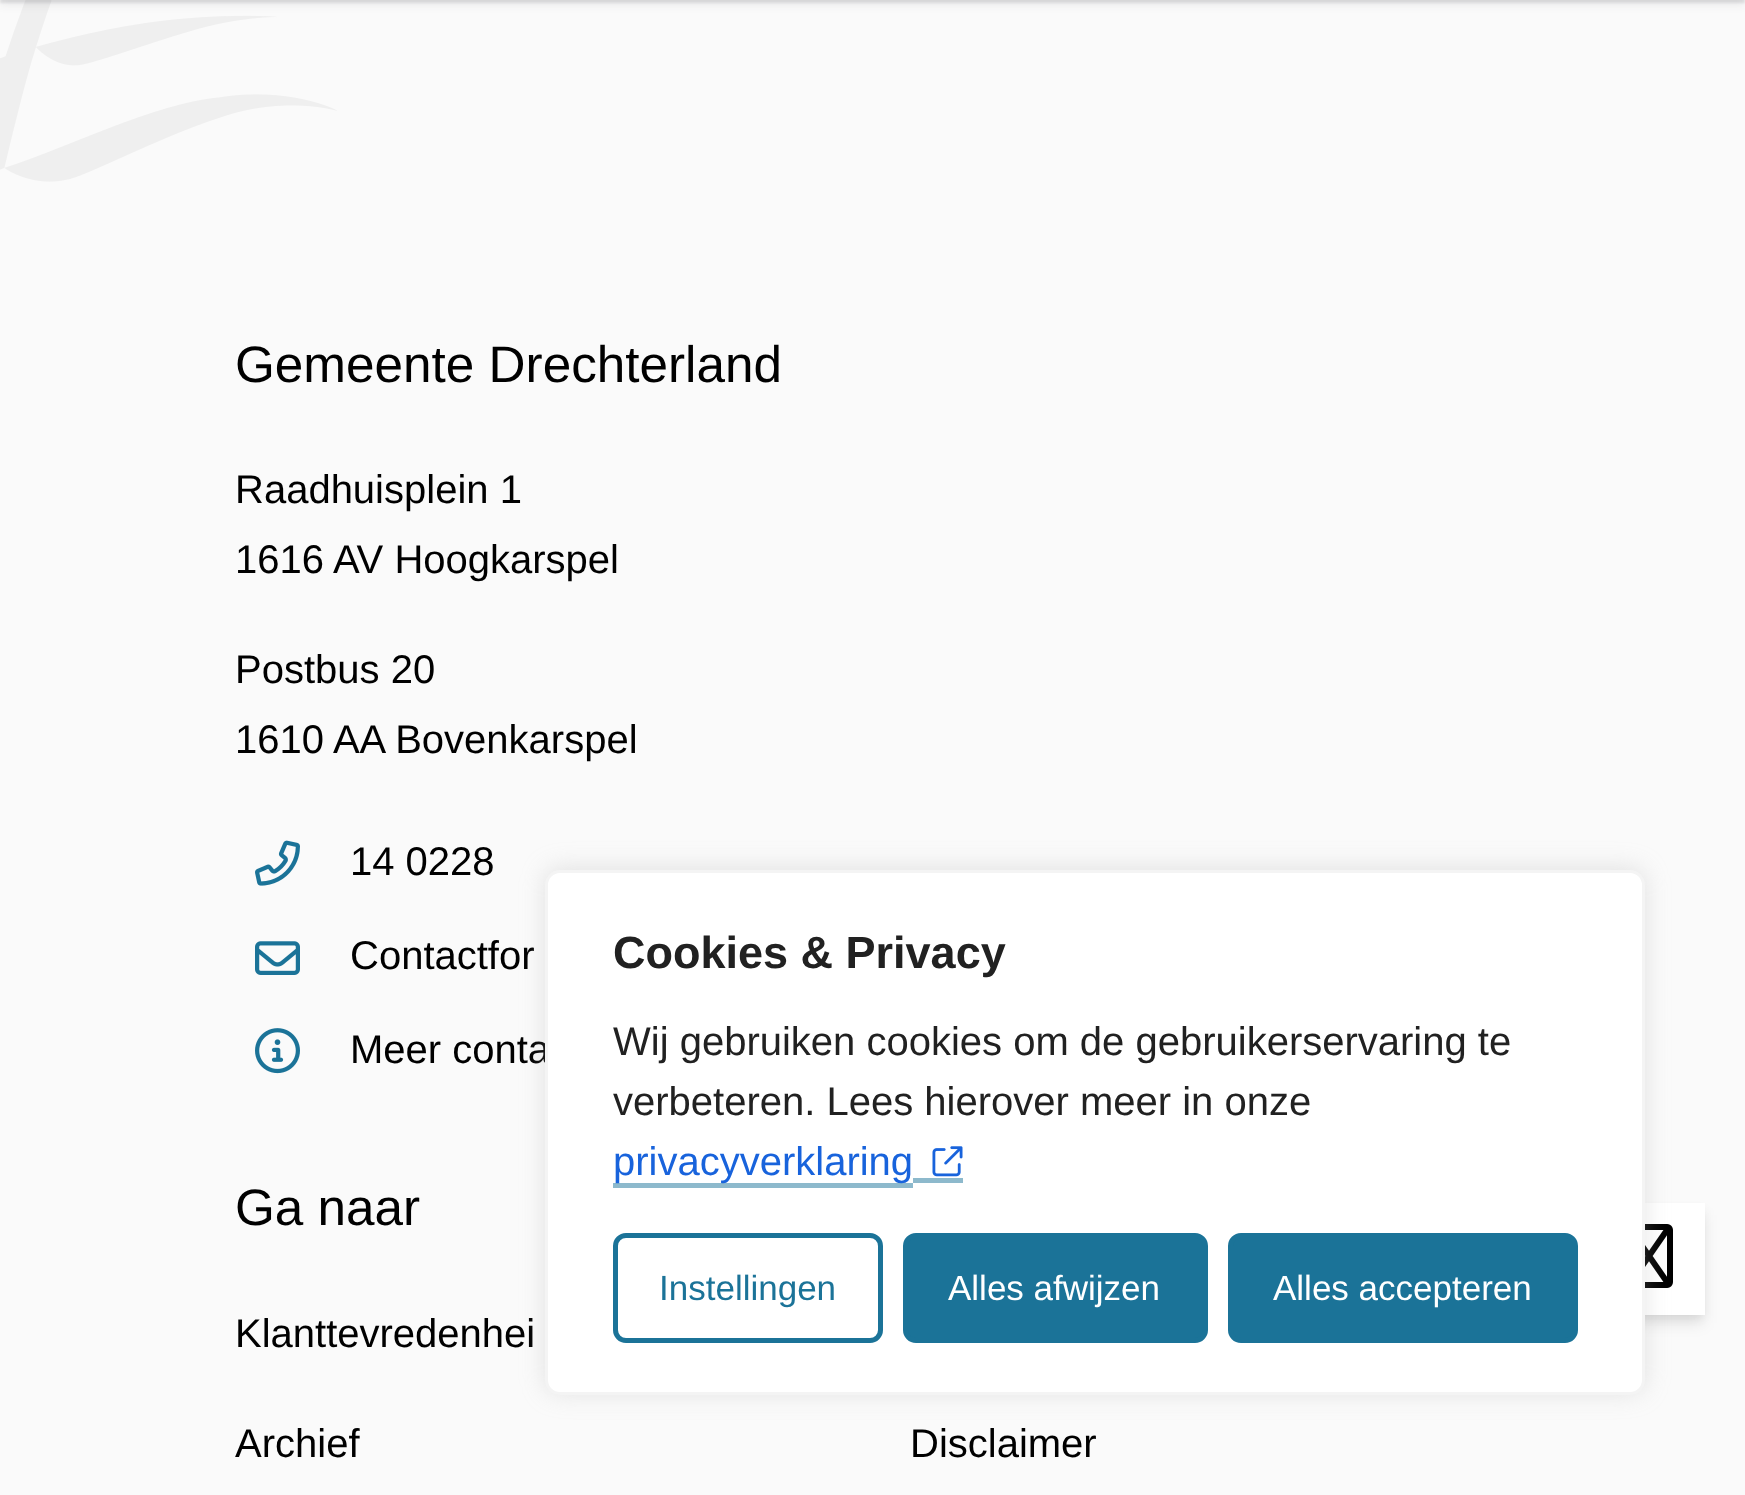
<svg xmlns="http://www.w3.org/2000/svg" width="1745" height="1495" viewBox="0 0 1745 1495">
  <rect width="100%" height="100%" fill="rgb(250,250,250)"/>
  <image x="0" y="0" width="337" height="182" href="pic1.png"/>
  <rect x="0" y="-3" width="1745" height="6" fill="rgba(40,44,53,0.1)" filter="blur(1px)"/>
  <rect x="0" y="-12" width="1745" height="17" fill="rgba(40,44,53,0.08)" filter="blur(4px)"/>
  <text x="235" y="382" font-family="Liberation Sans" font-size="51.25" fill="rgb(0,0,0)">Gemeente Drechterland</text>
  <g font-family="Liberation Sans" font-size="40" fill="rgb(0,0,0)">
    <text>
      <tspan x="235" y="503">Raadhuisplein 1</tspan>
      <tspan x="235" y="573">1616 AV Hoogkarspel</tspan>
    </text>
    <text>
      <tspan x="235" y="683">Postbus 20</tspan>
      <tspan x="235" y="753">1610 AA Bovenkarspel</tspan>
    </text>
  </g>
  <image x="255" y="840" width="45" height="46" href="pic2.png"/>
  <text x="350" y="875" font-family="Liberation Sans" font-size="40" fill="rgb(0,0,0)">14 0228</text>
  <image x="255" y="941" width="45" height="34" href="pic3.png"/>
  <text x="350" y="969" font-family="Liberation Sans" font-size="40" fill="rgb(0,0,0)">Contactfor</text>
  <image x="255" y="1028" width="45" height="46" href="pic4.png"/>
  <text x="350" y="1063" font-family="Liberation Sans" font-size="40" fill="rgb(0,0,0)">Meer conta</text>
  <text x="235" y="1225" font-family="Liberation Sans" font-size="51.25" fill="rgb(0,0,0)">Ga naar</text>
  <g font-family="Liberation Sans" font-size="40" fill="rgb(0,0,0)">
    <text x="235" y="1347">Klanttevredenhei</text>
    <text x="235" y="1457">Archief</text>
    <text x="910" y="1457">Disclaimer</text>
  </g>
  <rect x="1595" y="1210" width="108" height="108" fill="rgba(0,0,0,0.06)" filter="blur(5px)"/>
  <rect x="1595" y="1215" width="108" height="108" fill="rgba(0,0,0,0.1)" filter="blur(7.5px)"/>
  <rect x="1645" y="1203" width="60" height="112" fill="rgb(255,255,255)"/>
  <image x="1645" y="1224" width="28" height="64" href="pic5.png"/>
  <rect x="545" y="868" width="1100" height="525" rx="15" fill="rgba(172,171,171,0.3)" filter="blur(12.5px)"/>
  <rect x="546.5" y="871.5" width="1097" height="522" rx="13.5" fill="rgb(255,255,255)" stroke="rgb(244,244,244)" stroke-width="3"/>
  <text x="613" y="968" font-family="Liberation Sans" font-size="45" font-weight="bold" fill="rgb(33,33,33)">Cookies &amp; Privacy</text>
  <g font-family="Liberation Sans" font-size="40" fill="rgb(33,33,33)">
    <text>
      <tspan x="613" y="1055">Wij gebruiken cookies om de gebruikerservaring te</tspan>
      <tspan x="613" y="1115">verbeteren. Lees hierover meer in onze</tspan>
    </text>
  </g>
  <rect x="613" y="1183" width="300" height="5" fill="rgb(141,185,204)"/>
  <text x="613" y="1175" font-family="Liberation Sans" font-size="40" fill="rgb(24,99,220)">privacyverklaring</text>
  <rect x="913" y="1178" width="50" height="5" fill="rgb(141,185,204)"/>
  <image x="932" y="1146" width="31" height="31" href="pic6.png"/>
  <rect x="615.5" y="1235.5" width="265" height="105" rx="10.5" fill="none" stroke="rgb(27,115,152)" stroke-width="5"/>
  <text x="659" y="1300" font-family="Liberation Sans" font-size="35" fill="rgb(27,115,152)">Instellingen</text>
  <rect x="905.5" y="1235.5" width="300" height="105" rx="10.5" fill="rgb(27,115,152)" stroke="rgb(27,115,152)" stroke-width="5"/>
  <text x="948" y="1300" font-family="Liberation Sans" font-size="35" fill="rgb(255,255,255)">Alles afwijzen</text>
  <rect x="1230.5" y="1235.5" width="345" height="105" rx="10.5" fill="rgb(27,115,152)" stroke="rgb(27,115,152)" stroke-width="5"/>
  <text x="1273" y="1300" font-family="Liberation Sans" font-size="35" fill="rgb(255,255,255)">Alles accepteren</text>
</svg>
